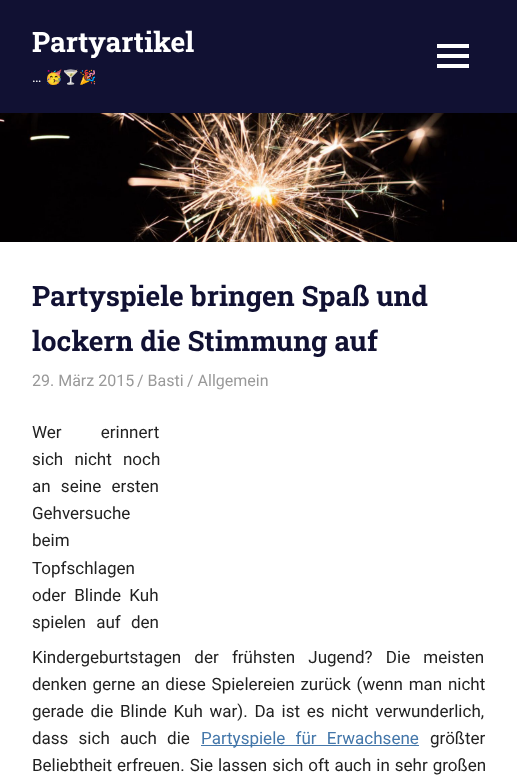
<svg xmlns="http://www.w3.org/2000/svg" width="517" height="777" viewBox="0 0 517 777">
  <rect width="100%" height="100%" fill="rgb(255,255,255)"/>
  <rect x="0" y="0" width="517" height="113" fill="rgb(17,17,51)"/>
  <text x="32" y="52" font-family="Roboto Slab" font-size="28" font-weight="bold" fill="rgb(255,255,255)">Partyartikel</text>
  <text x="32" y="82" font-family="Roboto" font-size="14" fill="rgb(255,255,255)">…</text>
  <text x="45" y="82" font-family="Noto Color Emoji" font-size="14" fill="rgb(255,255,255)">🥳🍸🎉</text>
  <image x="437" y="44" width="32" height="24" href="pic1.png"/>
  <image x="0" y="113" width="517" height="129" href="pic2.png"/>
  <g font-family="Roboto Slab" font-size="28" font-weight="bold" fill="rgb(17,17,51)">
    <text>
      <tspan x="32" y="306">Partyspiele bringen Spaß und</tspan>
      <tspan x="32" y="351">lockern die Stimmung auf</tspan>
    </text>
  </g>
  <g font-family="Roboto" font-size="16" fill="rgb(153,153,153)">
    <text x="32" y="386">29. März 2015</text>
    <text x="137" y="386">/ Basti</text>
    <text x="187" y="386">/ Allgemein</text>
  </g>
  <g font-family="Roboto" font-size="17" fill="rgb(34,34,34)">
    <text>
      <tspan x="32" y="438" word-spacing="35">Wer erinnert</tspan>
      <tspan x="32" y="465" word-spacing="7">sich nicht noch</tspan>
      <tspan x="32" y="492" word-spacing="6">an seine ersten</tspan>
      <tspan x="32" y="519">Gehversuche</tspan>
      <tspan x="32" y="546">beim</tspan>
      <tspan x="32" y="574">Topfschlagen</tspan>
      <tspan x="32" y="601" word-spacing="4">oder Blinde Kuh</tspan>
      <tspan x="32" y="628" word-spacing="6">spielen auf den</tspan>
    </text>
    <text>
      <tspan x="32" y="663" word-spacing="9">Kindergeburtstagen der frühsten Jugend? Die meisten</tspan>
      <tspan x="32" y="690" word-spacing="1.5">denken gerne an diese Spielereien zurück (wenn man nicht</tspan>
      <tspan x="32" y="717" word-spacing="2.5">gerade die Blinde Kuh war). Da ist es nicht verwunderlich,</tspan>
      <tspan x="32" y="744" word-spacing="6">dass sich auch die</tspan>
    </text>
  </g>
  <rect x="201" y="745" width="218" height="1" fill="rgb(68,119,170)"/>
  <text x="201" y="744" word-spacing="6" font-family="Roboto" font-size="17" fill="rgb(68,119,170)">Partyspiele für Erwachsene</text>
  <g font-family="Roboto" font-size="17" fill="rgb(34,34,34)">
    <text x="430" y="744">größter</text>
    <text x="32" y="771" word-spacing="0.75">Beliebtheit erfreuen. Sie lassen sich oft auch in sehr großen</text>
  </g>
</svg>
